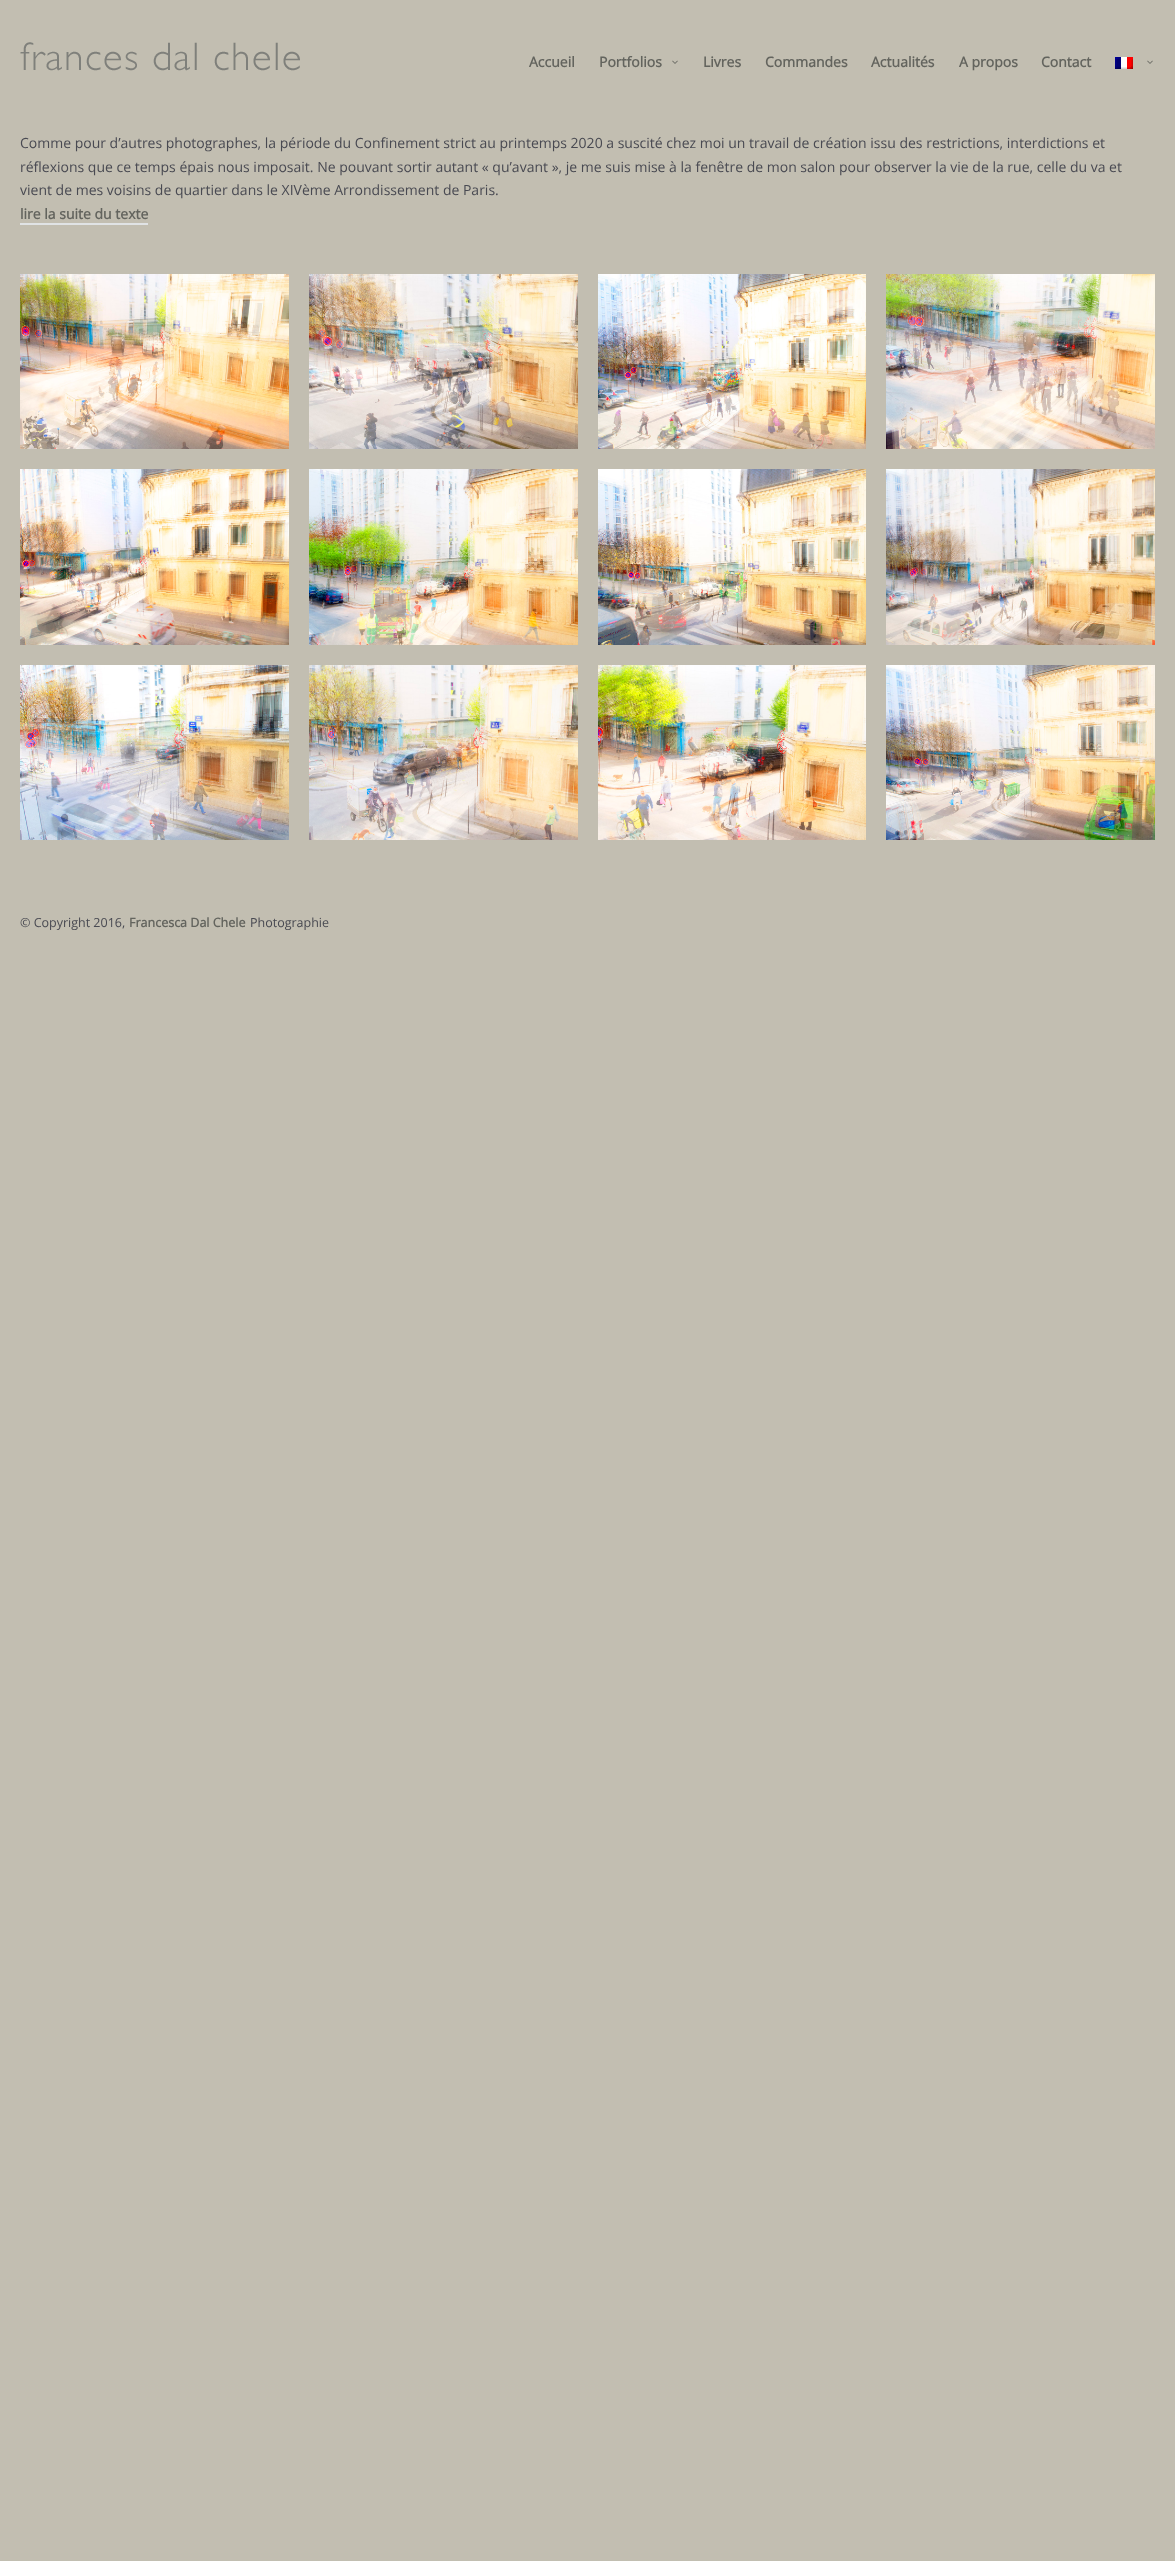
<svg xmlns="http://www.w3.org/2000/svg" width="1175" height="2561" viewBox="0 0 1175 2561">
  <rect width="100%" height="100%" fill="rgb(194,190,177)"/>
  <image x="20" y="42" width="280" height="29" href="pic1.png"/>
  <g font-family="Open Sans" font-size="14" font-weight="bold" fill="rgb(99,100,94)">
    <text x="529" y="67">Accueil</text>
    <text x="599" y="67">Portfolios</text>
  </g>
  <image x="672" y="60" width="6" height="4" href="pic2.png"/>
  <g font-family="Open Sans" font-size="14" font-weight="bold" fill="rgb(99,100,94)">
    <text x="703" y="67">Livres</text>
    <text x="765" y="67">Commandes</text>
    <text x="871" y="67">Actualités</text>
    <text x="959" y="67">A propos</text>
    <text x="1041" y="67">Contact</text>
  </g>
  <image x="1115" y="57" width="18" height="12" href="pic3.png"/>
  <image x="1147" y="60" width="6" height="4" href="pic2.png"/>
  <g font-family="Open Sans" font-size="14" fill="rgb(73,74,82)">
    <text>
      <tspan x="20" y="148">Comme pour d’autres photographes, la période du Confinement strict au printemps 2020 a suscité chez moi un travail de création issu des restrictions, interdictions et</tspan>
      <tspan x="20" y="172">réflexions que ce temps épais nous imposait. Ne pouvant sortir autant « qu’avant », je me suis mise à la fenêtre de mon salon pour observer la vie de la rue, celle du va et</tspan>
      <tspan x="20" y="195">vient de mes voisins de quartier dans le XIVème Arrondissement de Paris.</tspan>
    </text>
  </g>
  <text x="20" y="219" font-family="Open Sans" font-size="14" font-weight="bold" fill="rgb(99,100,94)">lire la suite du texte</text>
  <rect x="20" y="223" width="128" height="2" fill="rgb(224,227,229)"/>
  <image x="20" y="274" width="269" height="175" href="pic4.png"/>
  <image x="309" y="274" width="269" height="175" href="pic5.png"/>
  <image x="598" y="274" width="268" height="175" href="pic6.png"/>
  <image x="886" y="274" width="269" height="175" href="pic7.png"/>
  <image x="20" y="469" width="269" height="176" href="pic8.png"/>
  <image x="309" y="469" width="269" height="176" href="pic9.png"/>
  <image x="598" y="469" width="268" height="176" href="pic10.png"/>
  <image x="886" y="469" width="269" height="176" href="pic11.png"/>
  <image x="20" y="665" width="269" height="175" href="pic12.png"/>
  <image x="309" y="665" width="269" height="175" href="pic13.png"/>
  <image x="598" y="665" width="268" height="175" href="pic14.png"/>
  <image x="886" y="665" width="269" height="175" href="pic15.png"/>
  <text x="20" y="927" font-family="Open Sans" font-size="12.5" fill="rgb(73,74,82)">© Copyright 2016,</text>
  <text x="129" y="927" font-family="Open Sans" font-size="12.5" font-weight="bold" fill="rgb(99,100,94)">Francesca Dal Chele</text>
  <text x="250" y="927" font-family="Open Sans" font-size="12.5" fill="rgb(73,74,82)">Photographie</text>
</svg>
